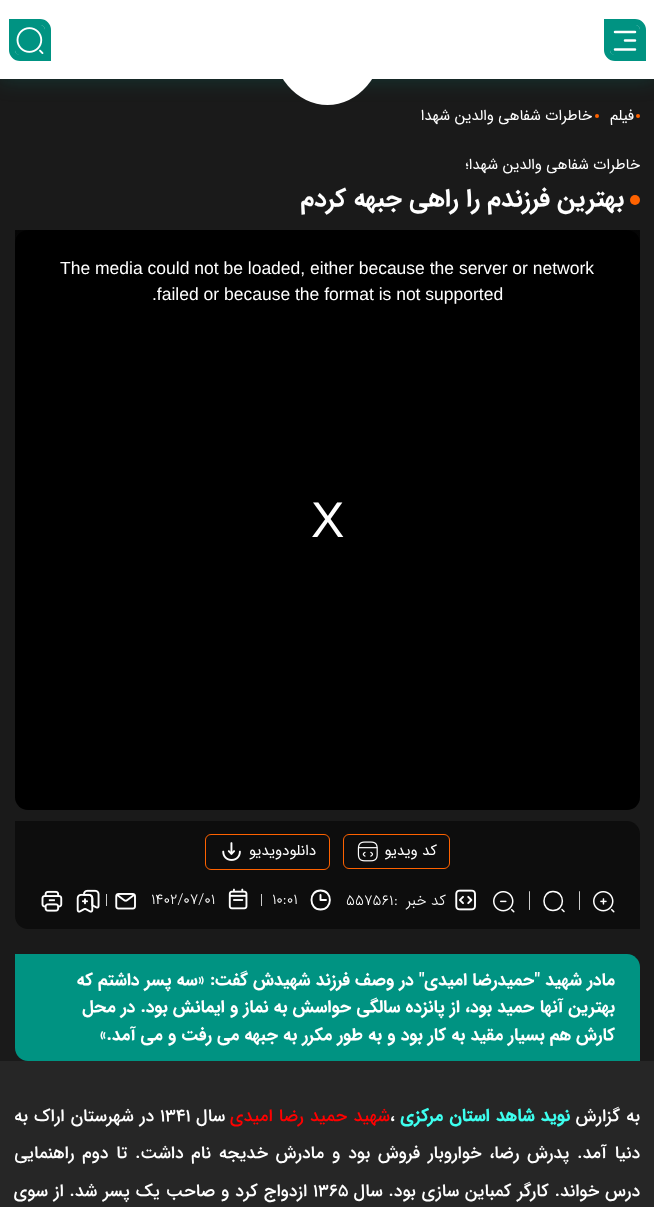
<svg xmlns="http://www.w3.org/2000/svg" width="654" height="1207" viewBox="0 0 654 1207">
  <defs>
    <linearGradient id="g1" gradientUnits="userSpaceOnUse" x1="328" y1="230" x2="328" y2="810"><stop offset="0" stop-color="rgb(0,0,0)" stop-opacity="0.8"/><stop offset="1" stop-color="rgb(0,0,0)" stop-opacity="0"/></linearGradient>
  </defs>
  <rect width="100%" height="100%" fill="rgb(38,38,38)"/>
  <rect x="0" y="79" width="654" height="982" fill="rgb(26,26,26)"/>
  <rect x="0" y="0" width="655" height="79" fill="rgba(0,147,130,0.25)" filter="blur(10.5px)"/>
  <rect x="0" y="0" width="654" height="79" fill="rgb(255,255,255)"/>
  <path d="M607 22H635C639.5 22 643 25.5 643 30V58H615C610.5 58 607 54.5 607 50Z" fill="none" stroke="rgb(0,147,130)" stroke-width="6"/>
  <path d="M610 25H635C638 25 640 27 640 30V55H615C612 55 610 53 610 50Z" fill="rgb(0,147,130)"/>
  <path d="M635 32H615M635 40.5H625M635 49.5H615" fill="none" stroke="rgb(255,255,255)" stroke-width="2.5" stroke-linecap="round"/>
  <rect x="271" y="-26" width="113" height="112" rx="56" fill="rgb(255,255,255)"/>
  <ellipse cx="327.5" cy="39.5" rx="56" ry="65.5" fill="rgb(255,255,255)"/>
  <path d="M12 22H40C44.5 22 48 25.5 48 30V58H20C15.5 58 12 54.5 12 50Z" fill="none" stroke="rgb(0,147,130)" stroke-width="6"/>
  <path d="M15 25H40C43 25 45 27 45 30V55H20C17 55 15 53 15 50Z" fill="rgb(0,147,130)"/>
  <image x="16" y="27" width="28" height="27" href="pic1.png"/>
  <circle cx="638" cy="116" r="2" fill="rgb(254,98,0)"/>
  <text x="634" y="120" font-family="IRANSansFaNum" font-size="15" direction="rtl" fill="rgb(255,255,255)">فیلم</text>
  <circle cx="597" cy="116" r="2" fill="rgb(254,98,0)"/>
  <g font-family="IRANSansFaNum" font-size="15" direction="rtl" fill="rgb(255,255,255)">
    <text x="592" y="120">خاطرات شفاهی والدین شهدا</text>
    <text x="640" y="169">خاطرات شفاهی والدین شهدا؛</text>
  </g>
  <circle cx="635" cy="200" r="5" fill="rgb(254,98,0)"/>
  <text x="624" y="206" font-family="IRANSansFaNum" font-size="25" font-weight="bold" direction="rtl" fill="rgb(255,255,255)">بهترین فرزندم را راهی جبهه کردم</text>
  <rect x="15" y="230" width="625" height="580" rx="13" fill="rgb(0,0,0)"/>
  <rect x="15" y="230" width="625" height="12" fill="url(#g1)"/>
  <g font-family="Liberation Sans" font-size="17.5" fill="rgb(255,255,255)">
    <text x="60" y="274">The media could not be loaded, either because the server or network</text>
    <text x="152" y="300">.failed or because the format is not supported</text>
  </g>
  <text x="311" y="537" font-family="Liberation Sans" font-size="50" fill="rgb(255,255,255)">X</text>
  <path d="M15 821H627C634 821 640 827 640 834V929H28C21 929 15 923 15 916Z" fill="rgb(13,13,13)"/>
  <rect x="343.5" y="834.5" width="106" height="34" rx="5.5" fill="none" stroke="rgb(254,98,0)"/>
  <text x="437" y="855" font-family="IRANSansFaNum" font-size="15" direction="rtl" fill="rgb(255,255,255)">کد ویدیو</text>
  <image x="357" y="841" width="21" height="21" href="pic2.png"/>
  <rect x="205.5" y="834.5" width="124" height="35" rx="5.5" fill="none" stroke="rgb(254,98,0)"/>
  <text x="316" y="855" font-family="IRANSansFaNum" font-size="15" direction="rtl" fill="rgb(255,255,255)">دانلودویدیو</text>
  <image x="222" y="842" width="19" height="19" href="pic3.png"/>
  <image x="593" y="891" width="22" height="22" href="pic4.png"/>
  <rect x="579" y="891" width="1" height="19" rx="0.5" fill="rgb(204,204,204)"/>
  <path d="M553 910.5C565.5 910.5 565.5 891.5 553 891.5C541 891.5 541 910.5 553 910.5ZM564 911.5L562 909.5" fill="none" stroke="rgb(255,255,255)" stroke-width="1.5" stroke-linecap="round" stroke-linejoin="round"/>
  <rect x="529" y="891" width="1" height="19" rx="0.5" fill="rgb(204,204,204)"/>
  <image x="493" y="891" width="22" height="22" href="pic5.png"/>
  <image x="455" y="889" width="21" height="22" href="pic6.png"/>
  <text x="446" y="905" font-family="IRANSansFaNum" font-size="15" font-weight="300" direction="rtl" fill="rgb(255,255,255)">کد خبر</text>
  <g font-family="IRANSansFaNum" font-size="15" font-weight="300" fill="rgb(255,255,255)">
    <text x="394" y="905">:</text>
    <text x="346" y="905">۵۵۷۵۶۱</text>
  </g>
  <path d="M320.5 895V900H326M320.5 909.5C308.5 909.5 308.5 890.5 320.5 890.5C333 890.5 333 909.5 320.5 909.5Z" fill="none" stroke="rgb(255,255,255)" stroke-width="1.9" stroke-linecap="round" stroke-linejoin="round"/>
  <text x="272" y="904" font-family="IRANSansFaNum" font-size="15" font-weight="300" fill="rgb(255,255,255)">۱۰:۰۱</text>
  <rect x="261" y="894" width="1" height="12" fill="rgb(204,204,204)"/>
  <image x="228" y="888" width="20" height="22" href="pic7.png"/>
  <text x="151" y="904" font-family="IRANSansFaNum" font-size="15" font-weight="300" fill="rgb(255,255,255)">۱۴۰۲/۰۷/۰۱</text>
  <image x="115" y="893" width="21" height="17" href="pic8.png"/>
  <rect x="106" y="894" width="1" height="12" fill="rgb(204,204,204)"/>
  <image x="76" y="889" width="24" height="24" href="pic9.png"/>
  <image x="41" y="890" width="22" height="22" href="pic10.png"/>
  <path d="M15 954H627C634 954 640 960 640 967V1061H28C21 1061 15 1055 15 1048Z" fill="rgb(0,147,130)"/>
  <g font-family="IRANSansFaNum" font-size="17.5" font-weight="bold" direction="rtl" fill="rgb(255,255,255)">
    <text>
      <tspan x="615" y="985">مادر شهید "حمیدرضا امیدی" در وصف فرزند شهیدش گفت: «سه پسر داشتم که</tspan>
      <tspan x="615" y="1012">بهترین آنها حمید بود، از پانزده سالگی حواسش به نماز و ایمانش بود. در محل</tspan>
      <tspan x="615" y="1040">کارش هم بسیار مقید به کار بود و به طور مکرر به جبهه می رفت و می آمد.»</tspan>
    </text>
  </g>
  <text x="640" y="1121" word-spacing="1" font-family="IRANSansFaNum" font-size="17.5" font-weight="500" direction="rtl" fill="rgb(255,255,255)">به گزارش</text>
  <text x="570" y="1121" word-spacing="1" font-family="'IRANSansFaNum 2'" font-size="17.5" font-weight="bold" direction="rtl" fill="rgb(61,255,239)">نوید شاهد استان مرکزی</text>
  <text x="390" y="1121" font-family="IRANSansFaNum" font-size="17.5" font-weight="500" fill="rgb(255,255,255)">،</text>
  <text x="390" y="1121" word-spacing="1" font-family="IRANSansFaNum" font-size="17.5" font-weight="500" direction="rtl" fill="rgb(255,0,0)">شهید حمید رضا امیدی</text>
  <text x="225" y="1121" font-family="IRANSansFaNum" font-size="17.5" font-weight="500" direction="rtl" fill="rgb(255,255,255)">سال</text>
  <text x="160" y="1121" font-family="IRANSansFaNum" font-size="17.5" font-weight="500" fill="rgb(255,255,255)">1341</text>
  <g font-family="IRANSansFaNum" font-size="17.5" font-weight="500" direction="rtl" fill="rgb(255,255,255)">
    <text x="154" y="1121" word-spacing="1">در شهرستان اراک به</text>
    <text x="640" y="1158" word-spacing="2.6">دنیا آمد. پدرش رضا، خواروبار فروش بود و مادرش خدیجه نام داشت. تا دوم راهنمایی</text>
    <text x="640" y="1196" word-spacing="0.75">درس خواند. کارگر کمباین سازی بود. سال</text>
  </g>
  <text x="313" y="1196" font-family="IRANSansFaNum" font-size="17.5" font-weight="500" fill="rgb(255,255,255)">1365</text>
  <text x="307" y="1196" word-spacing="0.75" font-family="IRANSansFaNum" font-size="17.5" font-weight="500" direction="rtl" fill="rgb(255,255,255)">ازدواج کرد و صاحب یک پسر شد. از سوی</text>
</svg>
